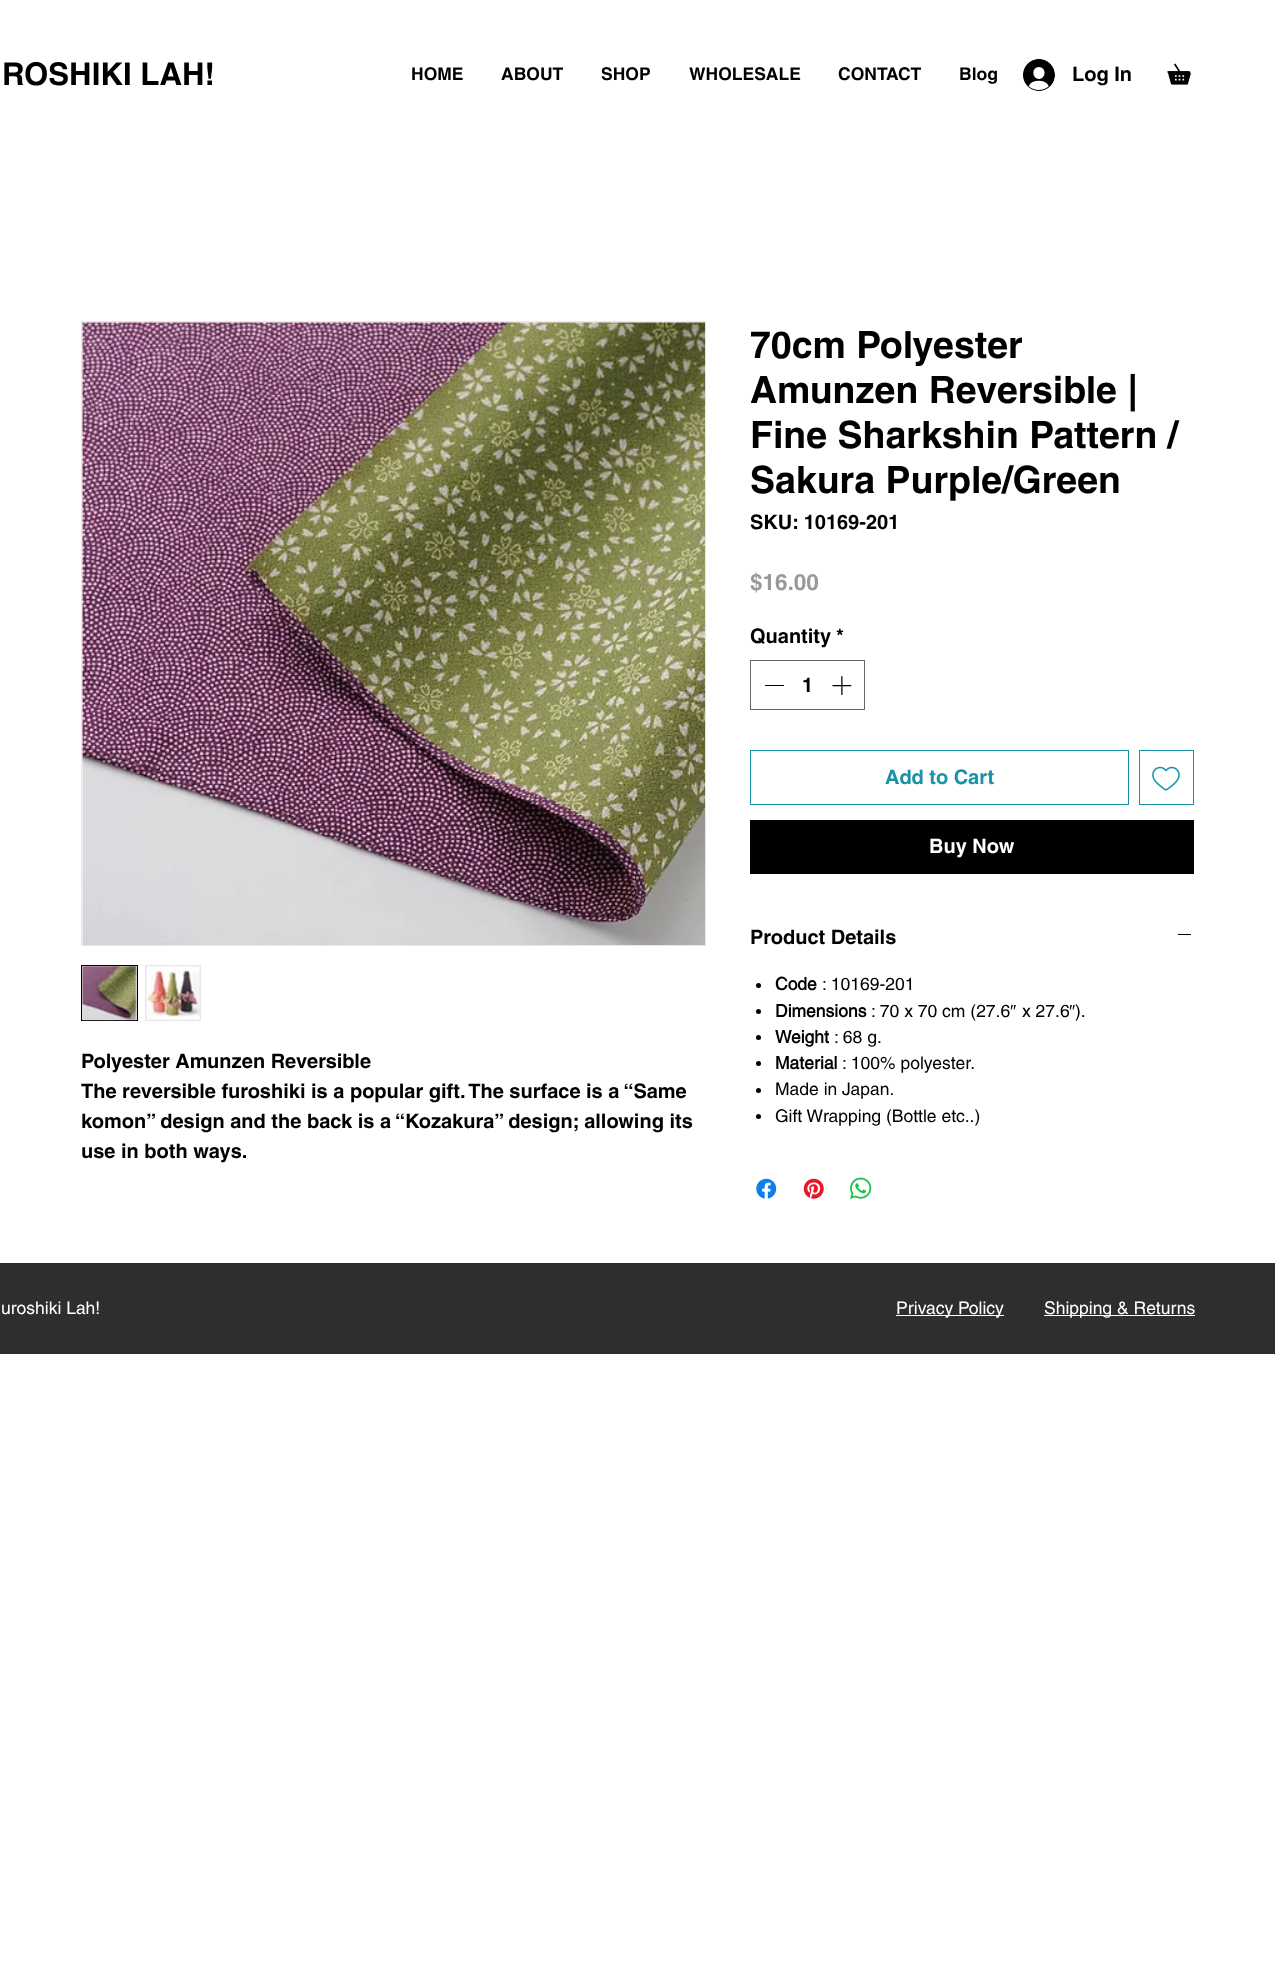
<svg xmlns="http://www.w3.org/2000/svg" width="1275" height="1972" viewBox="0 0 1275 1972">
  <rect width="100%" height="100%" fill="rgb(255,255,255)"/>
  <text x="2" y="85" font-family="helvetica" font-size="31.25" font-weight="bold" fill="rgb(0,0,0)">ROSHIKI LAH!</text>
  <g font-family="helvetica" font-size="17.5" font-weight="bold" fill="rgb(0,0,0)">
    <text x="411" y="80">HOME</text>
    <text x="501" y="80">ABOUT</text>
    <text x="601" y="80">SHOP</text>
    <text x="689" y="80">WHOLESALE</text>
    <text x="838" y="80">CONTACT</text>
    <text x="959" y="80">Blog</text>
  </g>
  <image x="1023" y="59" width="32" height="32" href="pic1.png"/>
  <text x="1072" y="81" font-family="helvetica" font-size="20" font-weight="bold" fill="rgb(0,0,0)">Log In</text>
  <image x="1167" y="63" width="24" height="22" href="pic2.png"/>
  <rect x="81.5" y="321.5" width="624" height="624" fill="none" stroke="rgb(232,230,230)"/>
  <image x="82" y="322" width="623" height="623" href="pic3.png"/>
  <rect x="81.5" y="965.5" width="56" height="55" fill="rgb(232,230,230)" stroke="rgb(0,0,0)"/>
  <image x="82" y="966" width="55" height="55" href="pic4.png"/>
  <rect x="145" y="965" width="56" height="56" fill="rgb(232,230,230)"/>
  <image x="146" y="966" width="54" height="54" href="pic5.png"/>
  <g font-family="helvetica" font-size="20" font-weight="bold" fill="rgb(0,0,0)">
    <text>
      <tspan x="81" y="1068">Polyester Amunzen Reversible</tspan>
      <tspan x="81" y="1098">The reversible furoshiki is a popular gift. The surface is a “Same</tspan>
      <tspan x="81" y="1128">komon” design and the back is a “Kozakura” design; allowing its</tspan>
      <tspan x="81" y="1158">use in both ways.</tspan>
    </text>
  </g>
  <g font-family="helvetica" font-size="37.5" font-weight="bold" fill="rgb(0,0,0)">
    <text>
      <tspan x="750" y="358">70cm Polyester</tspan>
      <tspan x="750" y="403">Amunzen Reversible |</tspan>
      <tspan x="750" y="448">Fine Sharkshin Pattern /</tspan>
      <tspan x="750" y="493">Sakura Purple/Green</tspan>
    </text>
  </g>
  <text x="750" y="529" font-family="helvetica" font-size="20" font-weight="bold" fill="rgb(0,0,0)">SKU: 10169-201</text>
  <text x="750" y="590" font-family="helvetica" font-size="22.5" font-weight="bold" fill="rgb(153,153,151)">$16.00</text>
  <g font-family="helvetica" font-size="20" font-weight="bold" fill="rgb(0,0,0)">
    <text x="750" y="643">Quantity</text>
    <text x="836" y="643">*</text>
  </g>
  <rect x="750.5" y="660.5" width="114" height="49" fill="none" stroke="rgb(102,102,102)"/>
  <rect x="765" y="685" width="19" height="1" fill="rgb(0,0,0)"/>
  <text x="802" y="692" font-family="helvetica" font-size="20" font-weight="bold" fill="rgb(0,0,0)">1</text>
  <image x="832" y="676" width="20" height="19" href="pic6.png"/>
  <rect x="750.5" y="750.5" width="378" height="54" fill="none" stroke="rgb(22,147,165)"/>
  <text x="885" y="784" font-family="helvetica" font-size="20" font-weight="bold" fill="rgb(22,147,165)">Add to Cart</text>
  <rect x="1139.5" y="750.5" width="54" height="54" fill="none" stroke="rgb(22,147,165)"/>
  <image x="1152" y="766" width="28" height="25" href="pic7.png"/>
  <rect x="750" y="820" width="444" height="54" fill="rgb(0,0,0)"/>
  <text x="929" y="853" font-family="helvetica" font-size="20" font-weight="bold" fill="rgb(255,255,255)">Buy Now</text>
  <text x="750" y="944" font-family="helvetica" font-size="20" font-weight="bold" fill="rgb(0,0,0)">Product Details</text>
  <rect x="1178" y="934" width="13" height="1" fill="rgb(0,0,0)"/>
  <circle cx="758.5" cy="985.5" r="2.5" fill="rgb(0,0,0)"/>
  <text x="775" y="990" font-family="'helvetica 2'" font-size="17.5" font-weight="bold" fill="rgb(0,0,0)">Code</text>
  <text x="822" y="990" font-family="helvetica" font-size="17.5" fill="rgb(0,0,0)">: 10169-201</text>
  <circle cx="758.5" cy="1011.5" r="2.5" fill="rgb(0,0,0)"/>
  <text x="775" y="1017" font-family="'helvetica 2'" font-size="17.5" font-weight="bold" fill="rgb(0,0,0)">Dimensions</text>
  <text x="871" y="1017" font-family="helvetica" font-size="17.5" fill="rgb(0,0,0)">: 70 x 70 cm (27.6</text>
  <text x="1010" y="1017" font-family="Liberation Sans" font-size="17.5" fill="rgb(0,0,0)">″</text>
  <text x="1022" y="1017" font-family="helvetica" font-size="17.5" fill="rgb(0,0,0)">x 27.6</text>
  <text x="1069" y="1017" font-family="Liberation Sans" font-size="17.5" fill="rgb(0,0,0)">″</text>
  <text x="1075" y="1017" font-family="helvetica" font-size="17.5" fill="rgb(0,0,0)">).</text>
  <circle cx="758.5" cy="1037.5" r="2.5" fill="rgb(0,0,0)"/>
  <text x="775" y="1043" font-family="'helvetica 2'" font-size="17.5" font-weight="bold" fill="rgb(0,0,0)">Weight</text>
  <text x="834" y="1043" font-family="helvetica" font-size="17.5" fill="rgb(0,0,0)">: 68 g.</text>
  <circle cx="758.5" cy="1063.5" r="2.5" fill="rgb(0,0,0)"/>
  <text x="775" y="1069" font-family="'helvetica 2'" font-size="17.5" font-weight="bold" fill="rgb(0,0,0)">Material</text>
  <text x="842" y="1069" font-family="helvetica" font-size="17.5" fill="rgb(0,0,0)">: 100% polyester.</text>
  <circle cx="758.5" cy="1090.5" r="2.5" fill="rgb(0,0,0)"/>
  <text x="775" y="1095" font-family="helvetica" font-size="17.5" fill="rgb(0,0,0)">Made in Japan.</text>
  <circle cx="758.5" cy="1116.5" r="2.5" fill="rgb(0,0,0)"/>
  <text x="775" y="1122" font-family="helvetica" font-size="17.5" fill="rgb(0,0,0)">Gift Wrapping (Bottle etc..)</text>
  <image x="756" y="1178" width="21" height="21" href="pic8.png"/>
  <image x="803" y="1178" width="21" height="21" href="pic9.png"/>
  <image x="850" y="1177" width="22" height="22" href="pic10.png"/>
  <rect x="0" y="1263" width="1275" height="91" fill="rgb(47,46,46)"/>
  <text x="1" y="1314" font-family="helvetica" font-size="17.5" fill="rgb(255,255,255)">uroshiki Lah!</text>
  <rect x="896" y="1315" width="108" height="1" fill="rgb(255,255,255)"/>
  <text x="896" y="1314" font-family="helvetica" font-size="17.5" fill="rgb(255,255,255)">Privacy Policy</text>
  <rect x="1044" y="1315" width="151" height="1" fill="rgb(255,255,255)"/>
  <text x="1044" y="1314" font-family="helvetica" font-size="17.5" fill="rgb(255,255,255)">Shipping &amp; Returns</text>
</svg>
